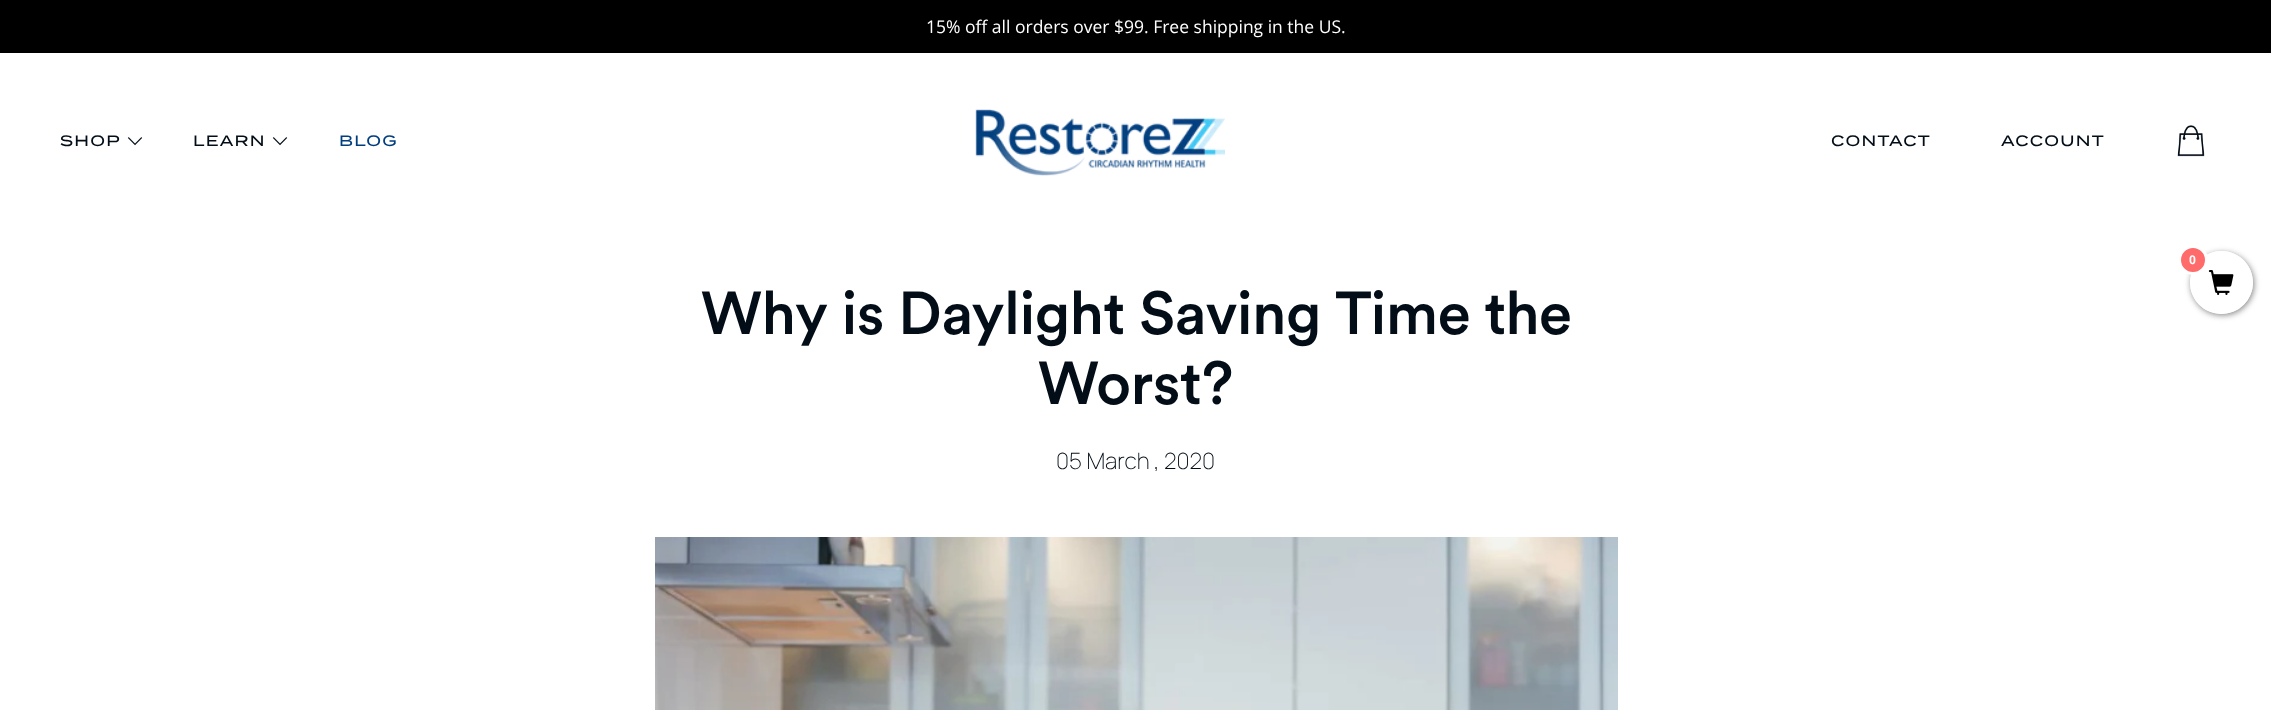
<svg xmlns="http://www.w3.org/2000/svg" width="2271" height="710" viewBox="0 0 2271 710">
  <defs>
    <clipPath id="clip1"><path d="M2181 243H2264V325H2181ZM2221.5 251C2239 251 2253 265 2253 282.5C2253 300 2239 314 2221.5 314C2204 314 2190 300 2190 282.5C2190 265 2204 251 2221.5 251Z" clip-rule="evenodd"/></clipPath>
  </defs>
  <rect width="100%" height="100%" fill="rgb(255,255,255)"/>
  <rect x="0" y="0" width="2271" height="53" fill="rgb(0,0,0)"/>
  <text x="926" y="33" font-family="Open Sans" font-size="17.5" fill="rgb(255,255,255)">15% off all orders over $99. Free shipping in the US.</text>
  <text x="60" y="146" font-family="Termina" font-size="15" font-weight="500" letter-spacing="1.25" fill="rgb(2,13,23)">SHOP</text>
  <image x="127" y="137" width="16" height="9" href="pic1.png"/>
  <text x="193" y="146" font-family="Termina" font-size="15" font-weight="500" letter-spacing="1.25" fill="rgb(2,13,23)">LEARN</text>
  <image x="272" y="137" width="16" height="9" href="pic1.png"/>
  <text x="339" y="146" font-family="Termina" font-size="15" font-weight="500" letter-spacing="1.25" fill="rgb(0,62,126)">BLOG</text>
  <image x="975" y="109" width="250" height="67" href="pic2.png"/>
  <g font-family="Termina" font-size="15" font-weight="500" letter-spacing="1.25" fill="rgb(2,13,23)">
    <text x="1831" y="146">CONTACT</text>
    <text x="2001" y="146">ACCOUNT</text>
  </g>
  <image x="2177" y="125" width="28" height="32" href="pic3.png"/>
  <g clip-path="url(#clip1)">
    <rect x="2191" y="253" width="63" height="62" rx="31" fill="rgb(128,128,128)" filter="blur(3px)"/>
  </g>
  <circle cx="2221.5" cy="282.5" r="31.5" fill="rgba(255,255,255,0.9)"/>
  <circle cx="2193" cy="260" r="13.5" fill="rgb(255,107,107)" stroke="rgb(255,255,255)" stroke-width="3"/>
  <text x="2189" y="264" font-family="Roboto" font-size="12" font-weight="bold" fill="rgb(255,255,255)">0</text>
  <image x="2208" y="270" width="26" height="25" href="pic4.png"/>
  <g font-family="Circular" font-size="60" font-weight="500" letter-spacing="-0.5" fill="rgb(2,13,23)">
    <text x="701" y="334">Why is Daylight Saving Time the</text>
    <text x="1038" y="404">Worst?</text>
  </g>
  <text x="1056" y="469" font-family="Manrope" font-size="22.5" font-weight="200" fill="rgb(2,13,23)">05 March , 2020</text>
  <image x="655" y="537" width="963" height="173" href="pic5.png"/>
</svg>
